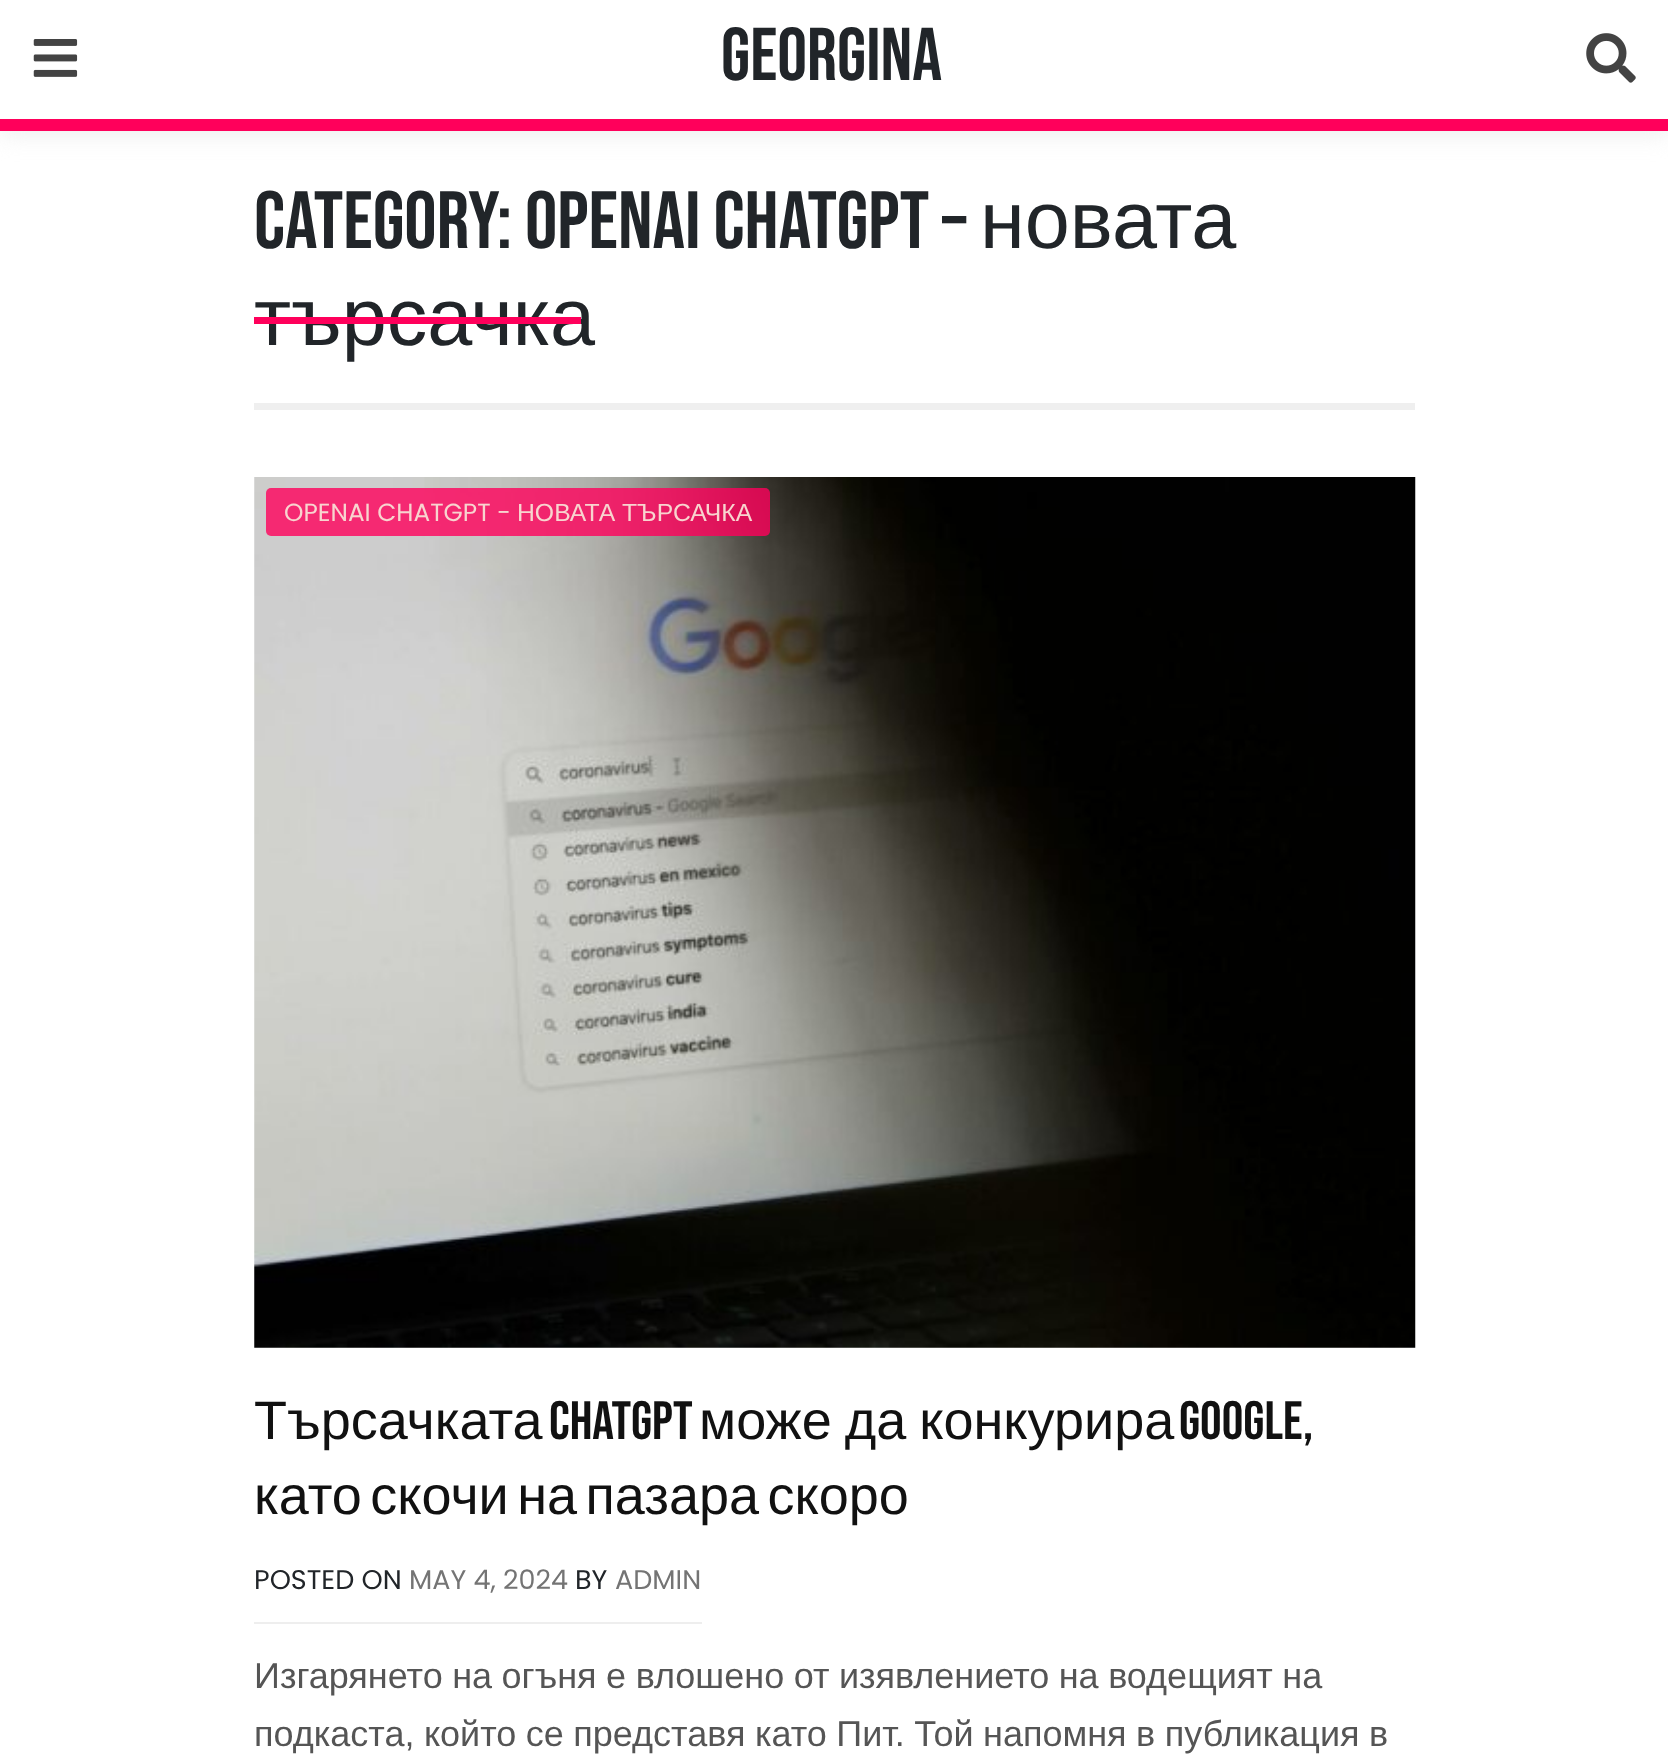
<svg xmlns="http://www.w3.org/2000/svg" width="1668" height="1762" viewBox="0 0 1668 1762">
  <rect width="100%" height="100%" fill="rgb(255,255,255)"/>
  <rect x="0" y="5" width="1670" height="130" fill="rgb(238,238,238)" filter="blur(11px)"/>
  <rect x="0" y="0" width="1668" height="119" fill="rgb(255,255,255)"/>
  <rect x="0" y="119" width="1668" height="12" fill="rgb(255,0,91)"/>
  <image x="33" y="39" width="45" height="38" href="pic1.png"/>
  <text x="721" y="80" font-family="Bebas Neue" font-size="74.5" fill="rgb(33,37,41)">Georgina</text>
  <image x="1586" y="33" width="50" height="50" href="pic2.png"/>
  <rect x="254" y="403" width="1161" height="7" fill="rgb(239,239,239)"/>
  <text x="254" y="248" font-family="Bebas Neue" font-size="81" fill="rgb(33,37,41)">Category: OpenAI ChatGPT –</text>
  <g font-family="Liberation Sans" font-size="81" fill="rgb(33,37,41)">
    <text x="980" y="248">новата</text>
    <text x="254" y="345">търсачка</text>
  </g>
  <rect x="254" y="317" width="327" height="7" fill="rgb(255,0,91)"/>
  <image x="254" y="477" width="1162" height="871" href="pic3.png"/>
  <rect x="266" y="488" width="504" height="48" rx="5" fill="rgba(255,0,91,0.8)"/>
  <text x="284" y="521" font-family="Poppins" font-size="24.75" fill="rgb(248,212,207)">OPENAI CHATGPT -</text>
  <g font-family="Liberation Sans" font-size="24.75" fill="rgb(248,212,207)">
    <text x="517" y="521">НОВАТА</text>
    <text x="622" y="521">ТЪРСАЧКА</text>
  </g>
  <text x="254" y="1439" font-family="Liberation Sans" font-size="54" fill="rgb(17,17,17)">Търсачката</text>
  <text x="549" y="1439" font-family="Bebas Neue" font-size="54" fill="rgb(17,17,17)">ChatGPT</text>
  <text x="699" y="1439" word-spacing="-2" font-family="Liberation Sans" font-size="54" fill="rgb(17,17,17)">може да конкурира</text>
  <text x="1179" y="1439" font-family="Bebas Neue" font-size="54" fill="rgb(17,17,17)">Google,</text>
  <text x="254" y="1514" word-spacing="-6.5" font-family="Liberation Sans" font-size="54" fill="rgb(17,17,17)">като скочи на пазара скоро</text>
  <rect x="254" y="1622" width="448" height="2" fill="rgb(238,238,238)"/>
  <text x="254" y="1589" font-family="Poppins" font-size="27" fill="rgb(33,37,41)">POSTED ON</text>
  <text x="409" y="1589" font-family="Poppins" font-size="27" fill="rgb(116,116,116)">MAY 4, 2024</text>
  <text x="575" y="1589" font-family="Poppins" font-size="27" fill="rgb(33,37,41)">BY</text>
  <text x="615" y="1589" font-family="Poppins" font-size="27" fill="rgb(116,116,116)">ADMIN</text>
  <g font-family="Liberation Sans" font-size="36" fill="rgb(85,85,85)">
    <text>
      <tspan x="254" y="1688" word-spacing="-0.5">Изгарянето на огъня е влошено от изявлението на водещият на</tspan>
      <tspan x="254" y="1746" word-spacing="-0.5">подкаста, който се представя като Пит. Той напомня в публикация в</tspan>
    </text>
  </g>
</svg>
